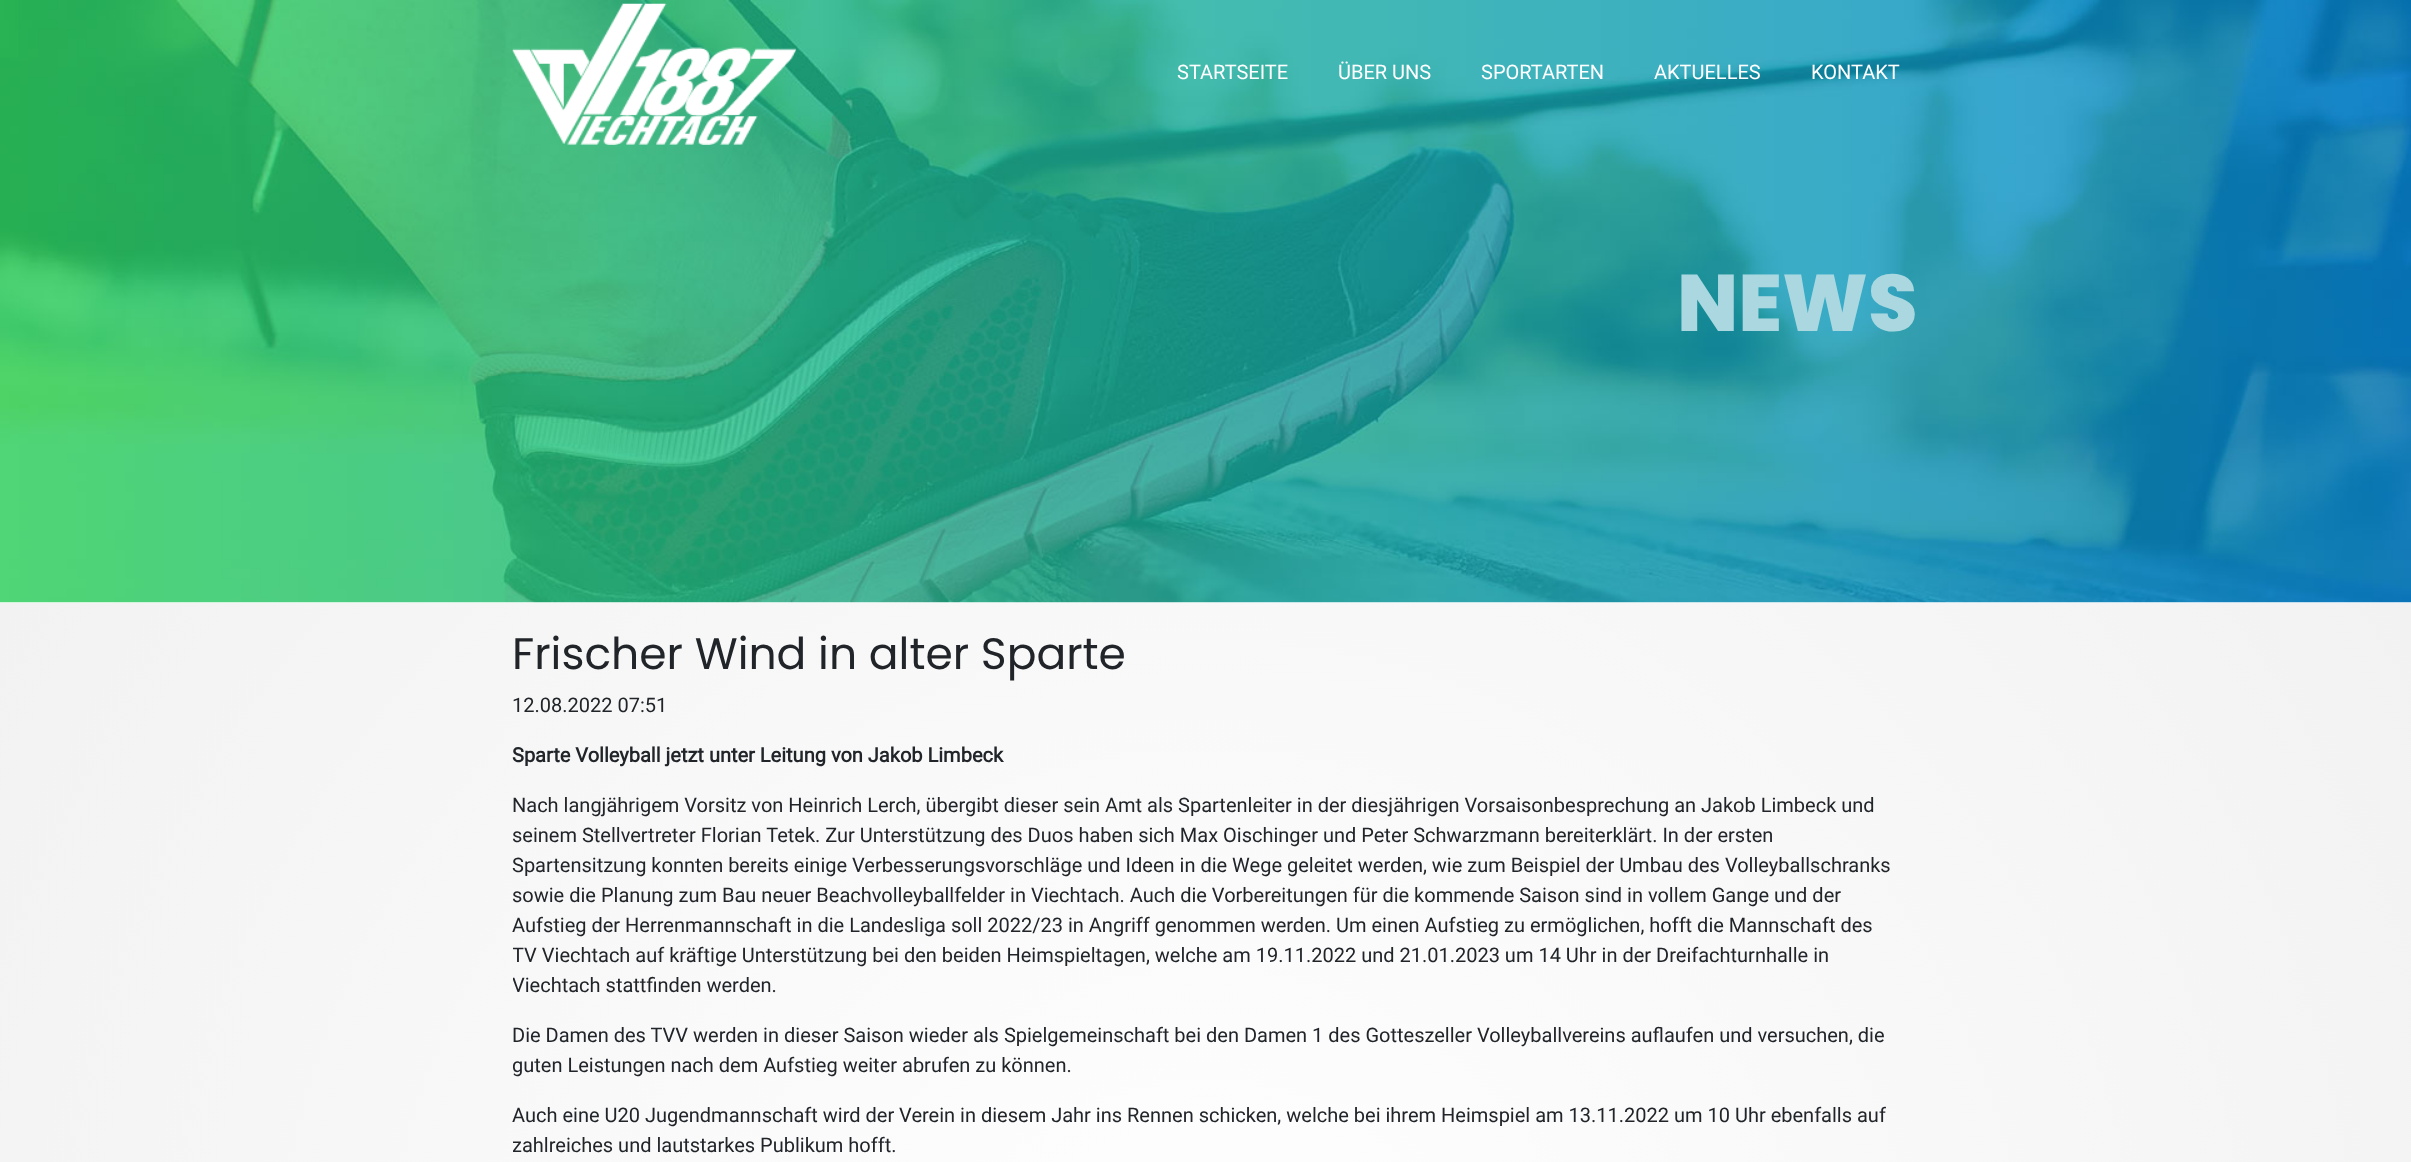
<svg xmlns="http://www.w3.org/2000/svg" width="2411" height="1162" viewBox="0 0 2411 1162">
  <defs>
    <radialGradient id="g1" gradientUnits="userSpaceOnUse" cx="1206" cy="1359" r="1423"><stop offset="0" stop-color="rgb(255,255,255)"/><stop offset="1" stop-color="rgb(242,242,242)"/></radialGradient>
    <clipPath id="clip1"><rect x="513" y="740" width="1387" height="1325"/></clipPath>
  </defs>
  <rect width="100%" height="100%" fill="rgb(255,255,255)"/>
  <image x="0" y="0" width="2411" height="603" href="pic2.png"/>
  <image x="512" y="3" width="285" height="142" href="pic1.png"/>
  <g font-family="Roboto" font-size="20" fill="rgb(255,255,255)">
    <text x="1177" y="79">STARTSEITE</text>
    <text x="1338" y="79">ÜBER UNS</text>
    <text x="1481" y="79">SPORTARTEN</text>
    <text x="1654" y="79">AKTUELLES</text>
    <text x="1811" y="79">KONTAKT</text>
  </g>
  <text x="1677" y="331" font-family="Poppins" font-size="80" font-weight="800" fill="rgb(171,216,224)">NEWS</text>
  <rect x="0" y="603" width="2411" height="559" fill="url(#g1)"/>
  <text x="512" y="669" font-family="Poppins" font-size="44" fill="rgb(33,37,41)">Frischer Wind in alter Sparte</text>
  <text x="512" y="712" font-family="Roboto" font-size="20" fill="rgb(33,37,41)">12.08.2022 07:51</text>
  <text x="512" y="762" font-family="Roboto" font-size="20" font-weight="bold" fill="rgb(33,37,41)">Sparte Volleyball jetzt unter Leitung von Jakob Limbeck</text>
  <g font-family="Roboto" font-size="20" fill="rgb(33,37,41)">
    <text>
      <tspan x="512" y="812">Nach langjährigem Vorsitz von Heinrich Lerch, übergibt dieser sein Amt als Spartenleiter in der diesjährigen Vorsaisonbesprechung an Jakob Limbeck und</tspan>
      <tspan x="512" y="842">seinem Stellvertreter Florian Tetek. Zur Unterstützung des Duos haben sich Max Oischinger und Peter Schwarzmann bereiterklärt. In der ersten</tspan>
      <tspan x="512" y="872">Spartensitzung konnten bereits einige Verbesserungsvorschläge und Ideen in die Wege geleitet werden, wie zum Beispiel der Umbau des Volleyballschranks</tspan>
      <tspan x="512" y="902">sowie die Planung zum Bau neuer Beachvolleyballfelder in Viechtach. Auch die Vorbereitungen für die kommende Saison sind in vollem Gange und der</tspan>
      <tspan x="512" y="932">Aufstieg der Herrenmannschaft in die Landesliga soll 2022/23 in Angriff genommen werden. Um einen Aufstieg zu ermöglichen, hofft die Mannschaft des</tspan>
    </text>
  </g>
  <g clip-path="url(#clip1)">
    <g font-family="Roboto" font-size="20" fill="rgb(33,37,41)">
      <text>
        <tspan x="512" y="962">TV Viechtach auf kräftige Unterstützung bei den beiden Heimspieltagen, welche am 19.11.2022 und 21.01.2023 um 14 Uhr in der Dreifachturnhalle in</tspan>
        <tspan x="512" y="992">Viechtach stattfinden werden.</tspan>
      </text>
    </g>
  </g>
  <text x="512" y="1042" font-family="Roboto" font-size="20" fill="rgb(33,37,41)">Die Damen des TVV werden in dieser Saison wieder als Spielgemeinschaft bei den Damen 1 des Gotteszeller Volleyballvereins auflaufen und versuchen, die</text>
  <g clip-path="url(#clip1)">
    <text x="512" y="1072" font-family="Roboto" font-size="20" fill="rgb(33,37,41)">guten Leistungen nach dem Aufstieg weiter abrufen zu können.</text>
  </g>
  <text x="512" y="1122" font-family="Roboto" font-size="20" fill="rgb(33,37,41)">Auch eine U20 Jugendmannschaft wird der Verein in diesem Jahr ins Rennen schicken, welche bei ihrem Heimspiel am 13.11.2022 um 10 Uhr ebenfalls auf</text>
  <g clip-path="url(#clip1)">
    <text x="512" y="1152" font-family="Roboto" font-size="20" fill="rgb(33,37,41)">zahlreiches und lautstarkes Publikum hofft.</text>
  </g>
</svg>
